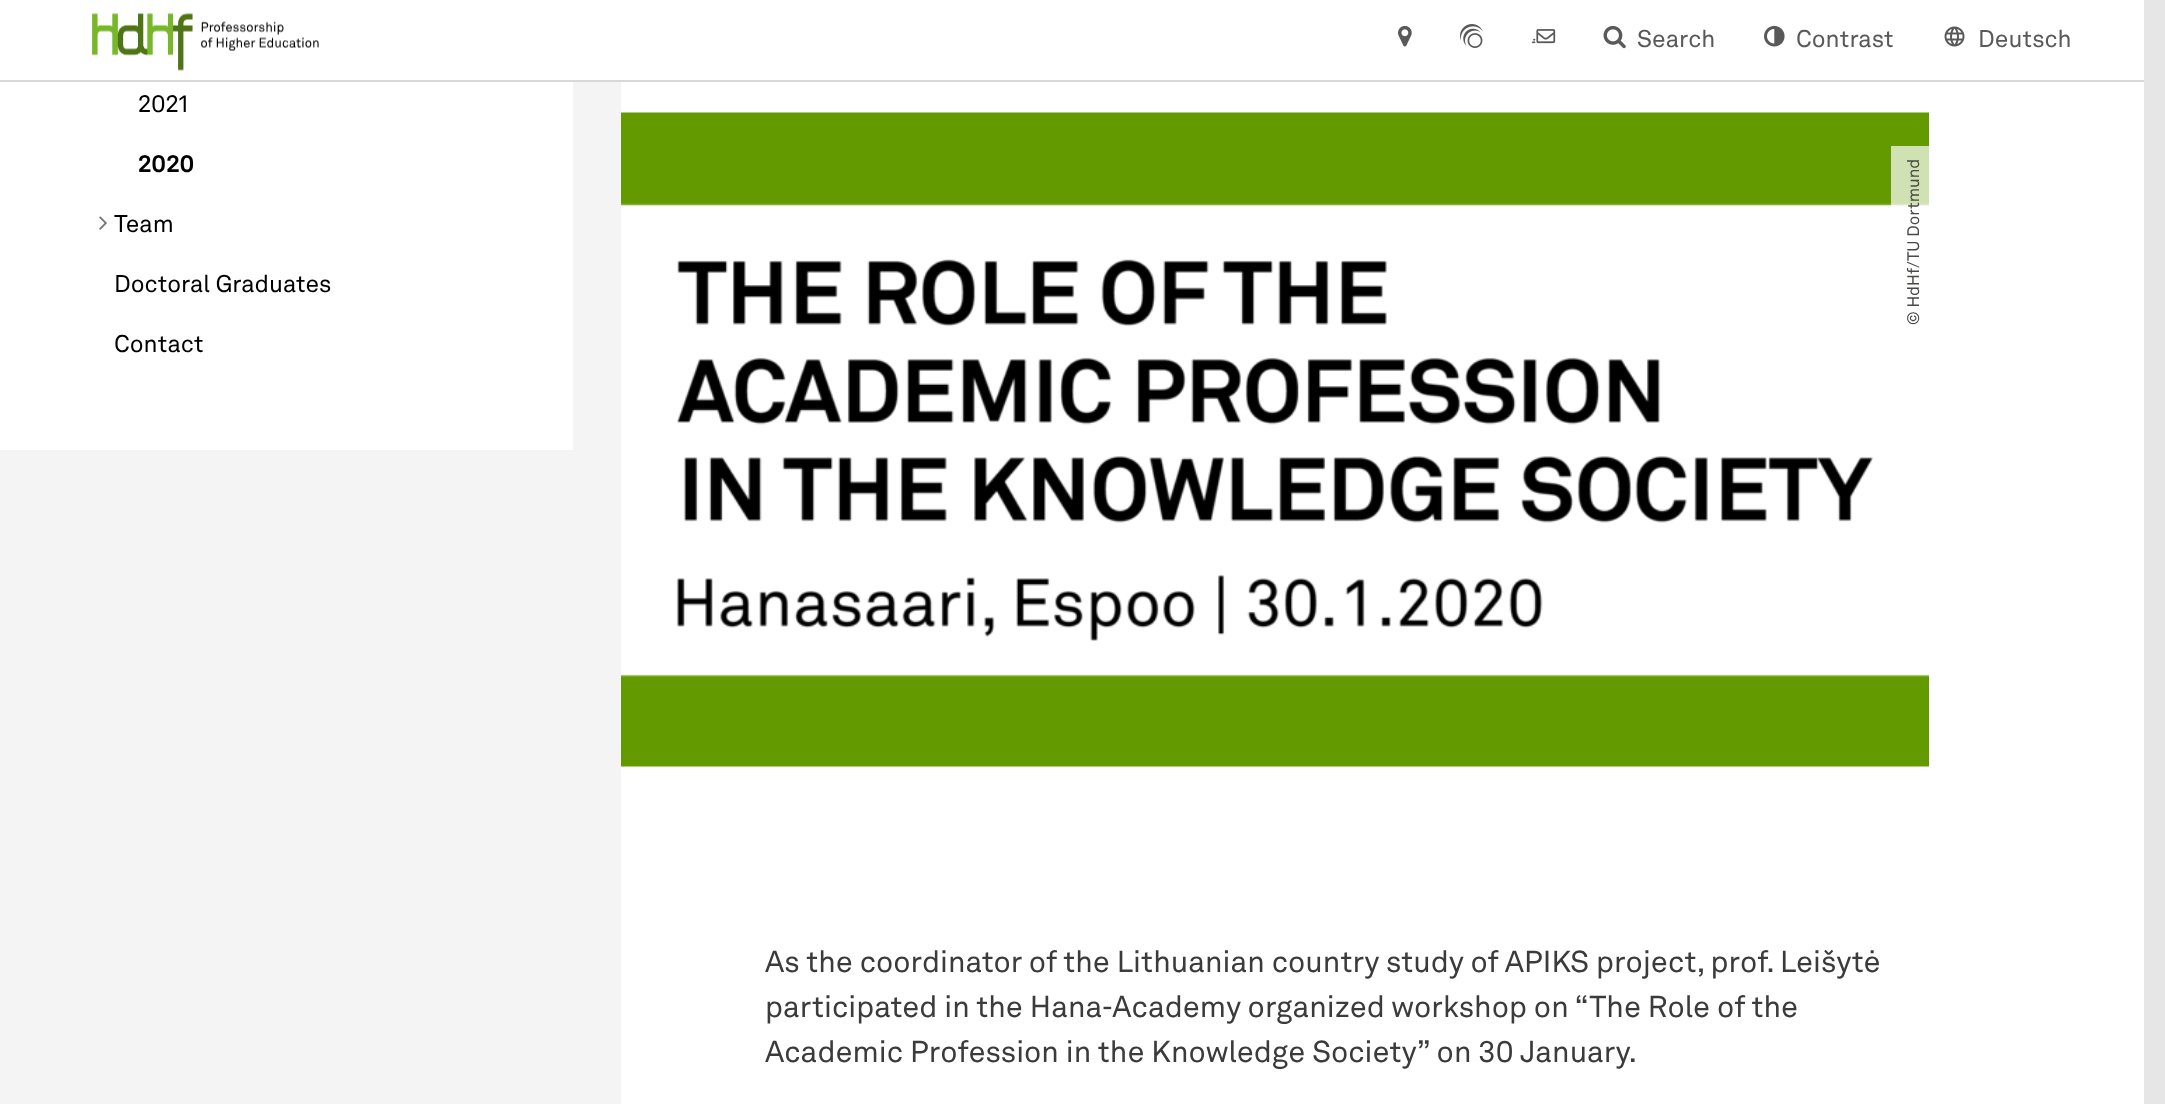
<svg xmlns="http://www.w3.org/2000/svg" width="2165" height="1104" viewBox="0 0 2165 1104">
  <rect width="100%" height="100%" fill="rgb(230,230,230)"/>
  <rect x="0" y="0" width="2144" height="80" fill="rgb(255,255,255)"/>
  <rect x="0" y="80" width="2144" height="2" fill="rgb(216,216,216)"/>
  <image x="92" y="13" width="227" height="58" href="pic1.png"/>
  <image x="1398" y="25" width="14" height="22" href="pic2.png"/>
  <image x="1460" y="24" width="23" height="24" href="pic3.png"/>
  <image x="1531" y="29" width="25" height="15" href="pic4.png"/>
  <image x="1603" y="25" width="23" height="24" href="pic5.png"/>
  <text x="1637" y="47" font-family="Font" font-size="24" fill="rgb(89,89,89)">Search</text>
  <image x="1764" y="25" width="21" height="22" href="pic6.png"/>
  <text x="1796" y="47" font-family="Font" font-size="24" fill="rgb(89,89,89)">Contrast</text>
  <image x="1944" y="26" width="21" height="21" href="pic7.png"/>
  <text x="1978" y="47" font-family="Font" font-size="24" fill="rgb(89,89,89)">Deutsch</text>
  <rect x="0" y="82" width="621" height="1022" fill="rgb(244,244,244)"/>
  <rect x="0" y="82" width="573" height="368" fill="rgb(255,255,255)"/>
  <text x="138" y="112" font-family="Font" font-size="24" fill="rgb(0,0,0)">2021</text>
  <text x="138" y="172" font-family="Font" font-size="24" font-weight="bold" fill="rgb(0,0,0)">2020</text>
  <image x="99" y="216" width="8" height="14" href="pic8.png"/>
  <g font-family="Font" font-size="24" fill="rgb(0,0,0)">
    <text x="114" y="232">Team</text>
    <text x="114" y="292">Doctoral Graduates</text>
    <text x="114" y="352">Contact</text>
  </g>
  <rect x="621" y="82" width="1523" height="1022" fill="rgb(255,255,255)"/>
  <image x="621" y="112" width="1308" height="655" href="pic9.png"/>
  <rect x="1891" y="146" width="38" height="61" fill="rgba(255,255,255,0.7)"/>
  <text x="1919" y="325" transform="rotate(-90 1919 325)" font-family="Font" font-size="16.5" fill="rgb(73,74,71)">© HdHf/TU Dortmund</text>
  <g font-family="Font" font-size="30" fill="rgb(59,59,59)">
    <text>
      <tspan x="765" y="972">As the coordinator of the Lithuanian country study of APIKS project, prof. Leišytė</tspan>
      <tspan x="765" y="1017">participated in the Hana-Academy organized workshop on “The Role of the</tspan>
      <tspan x="765" y="1062">Academic Profession in the Knowledge Society” on 30 January.</tspan>
    </text>
  </g>
</svg>
